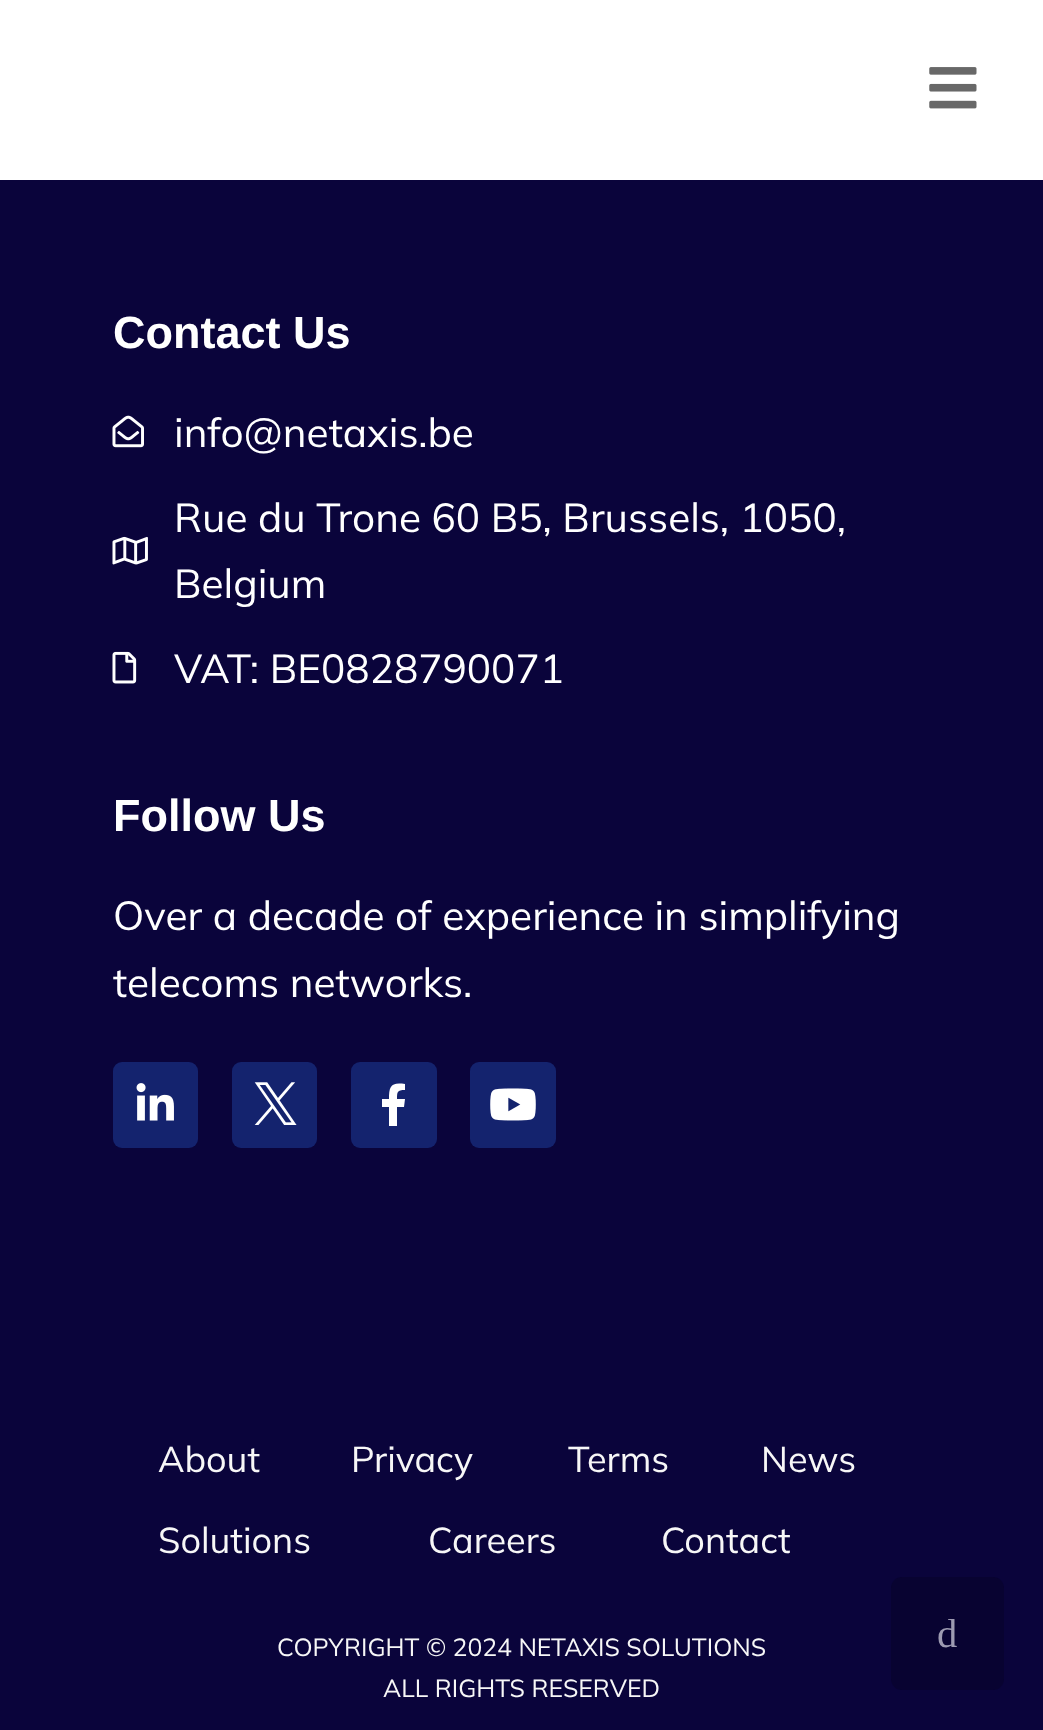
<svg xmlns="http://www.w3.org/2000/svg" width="1043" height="1730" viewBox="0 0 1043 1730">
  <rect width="100%" height="100%" fill="rgb(10,4,59)"/>
  <rect x="0" y="0" width="1043" height="180" fill="rgb(255,255,255)"/>
  <image x="929" y="67" width="48" height="42" href="pic1.png"/>
  <text x="113" y="348" font-family="Liberation Sans" font-size="45" font-weight="bold" fill="rgb(255,255,255)">Contact Us</text>
  <image x="112" y="415" width="32" height="33" href="pic2.png"/>
  <text x="174" y="447" font-family="Mulish" font-size="40.5" font-weight="200" fill="rgb(255,255,255)">info@netaxis.be</text>
  <image x="112" y="536" width="36" height="29" href="pic3.png"/>
  <g font-family="Mulish" font-size="40.5" font-weight="200" fill="rgb(255,255,255)">
    <text>
      <tspan x="174" y="532">Rue du Trone 60 B5, Brussels, 1050,</tspan>
      <tspan x="174" y="598">Belgium</tspan>
    </text>
  </g>
  <image x="112" y="651" width="25" height="33" href="pic4.png"/>
  <text x="174" y="683" font-family="Mulish" font-size="40.5" font-weight="200" fill="rgb(255,255,255)">VAT: BE0828790071</text>
  <text x="113" y="831" font-family="Liberation Sans" font-size="45" font-weight="bold" fill="rgb(255,255,255)">Follow Us</text>
  <g font-family="Mulish" font-size="40.5" font-weight="200" fill="rgb(255,255,255)">
    <text>
      <tspan x="113" y="930">Over a decade of experience in simplifying</tspan>
      <tspan x="113" y="997">telecoms networks.</tspan>
    </text>
  </g>
  <rect x="113" y="1062" width="85" height="86" rx="9" fill="rgb(20,35,110)"/>
  <image x="136" y="1083" width="38" height="38" href="pic5.png"/>
  <rect x="232" y="1062" width="85" height="86" rx="9" fill="rgb(20,35,110)"/>
  <image x="254" y="1082" width="43" height="43" href="pic6.png"/>
  <rect x="351" y="1062" width="86" height="86" rx="9" fill="rgb(20,35,110)"/>
  <path d="M404 1107H397V1126H389V1107H382V1099H389C389 1086 391 1082 405 1084V1090C397 1090 397 1092 397 1099H405Z" fill="rgb(255,255,255)"/>
  <rect x="470" y="1062" width="86" height="86" rx="9" fill="rgb(20,35,110)"/>
  <image x="490" y="1088" width="46" height="33" href="pic7.png"/>
  <g font-family="Mulish" font-size="36" font-weight="200" fill="rgb(247,247,247)">
    <text x="158" y="1472">About</text>
    <text x="351" y="1472">Privacy</text>
    <text x="568" y="1472">Terms</text>
    <text x="761" y="1472">News</text>
    <text x="158" y="1553">Solutions</text>
    <text x="428" y="1553">Careers</text>
    <text x="661" y="1553">Contact</text>
  </g>
  <g font-family="Mulish" font-size="24.75" font-weight="200" fill="rgb(247,247,247)">
    <text x="277" y="1656">COPYRIGHT © 2024 NETAXIS SOLUTIONS</text>
    <text x="383" y="1697">ALL RIGHTS RESERVED</text>
  </g>
  <rect x="891" y="1577" width="113" height="113" rx="11" fill="rgb(8,3,49)"/>
  <text x="937" y="1647" font-family="Liberation Serif" font-size="40.5" fill="rgb(157,155,177)">d</text>
</svg>
